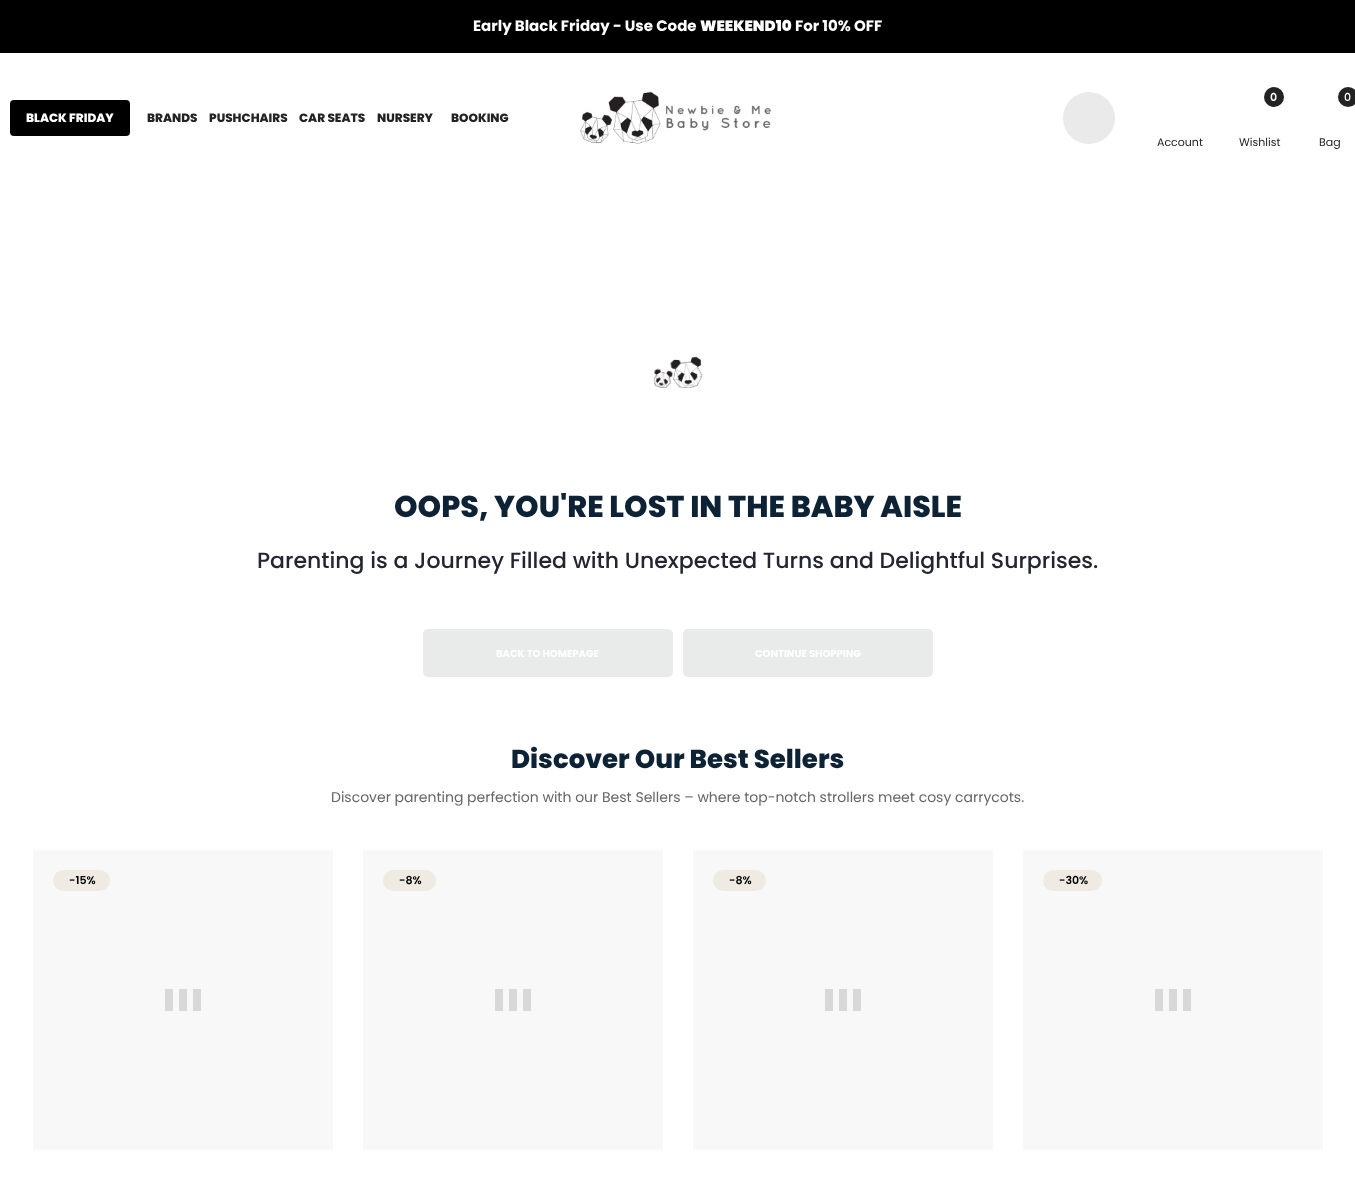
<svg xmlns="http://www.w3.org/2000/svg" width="1355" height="1180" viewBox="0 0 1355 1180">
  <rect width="100%" height="100%" fill="rgb(255,255,255)"/>
  <rect x="0" y="0" width="1355" height="53" fill="rgb(0,0,0)"/>
  <text x="473" y="31" font-family="Poppins" font-size="15" font-weight="bold" fill="rgb(255,255,255)">Early Black Friday - Use Code</text>
  <text x="700" y="31" font-family="Poppins" font-size="15" font-weight="900" fill="rgb(255,255,255)">WEEKEND10</text>
  <text x="795" y="31" font-family="Poppins" font-size="15" font-weight="bold" fill="rgb(255,255,255)">For 10% OFF</text>
  <rect x="10" y="100" width="120" height="36" rx="4" fill="rgb(0,0,0)"/>
  <text x="26" y="122" font-family="Poppins" font-size="12" font-weight="800" fill="rgb(255,255,255)">BLACK FRIDAY</text>
  <g font-family="Poppins" font-size="12" font-weight="800" fill="rgb(35,35,35)">
    <text x="147" y="122">BRANDS</text>
    <text x="209" y="122">PUSHCHAIRS</text>
    <text x="299" y="122">CAR SEATS</text>
    <text x="377" y="122">NURSERY</text>
    <text x="451" y="122">BOOKING</text>
  </g>
  <image x="580" y="91" width="191" height="53" href="pic1.png"/>
  <circle cx="1089" cy="118" r="26" fill="rgb(234,234,234)"/>
  <text x="1157" y="146" font-family="Poppins" font-size="11" fill="rgb(35,35,35)">Account</text>
  <circle cx="1274" cy="97" r="10" fill="rgb(35,35,35)"/>
  <text x="1270" y="101" font-family="Poppins" font-size="11" font-weight="600" fill="rgb(255,255,255)">0</text>
  <text x="1239" y="146" font-family="Poppins" font-size="11" fill="rgb(35,35,35)">Wishlist</text>
  <circle cx="1348" cy="97" r="10" fill="rgb(35,35,35)"/>
  <text x="1344" y="101" font-family="Poppins" font-size="11" font-weight="500" fill="rgb(255,255,255)">0</text>
  <text x="1319" y="146" font-family="Poppins" font-size="11" fill="rgb(35,35,35)">Bag</text>
  <image x="653" y="356" width="49" height="32" href="pic2.png"/>
  <text x="394" y="517" font-family="Poppins" font-size="30" font-weight="800" fill="rgb(13,34,53)">OOPS, YOU'RE LOST IN THE BABY AISLE</text>
  <text x="257" y="568" font-family="Poppins" font-size="22" font-weight="500" fill="rgb(35,38,48)">Parenting is a Journey Filled with Unexpected Turns and Delightful Surprises.</text>
  <rect x="423" y="629" width="250" height="48" rx="5" fill="rgb(233,235,235)"/>
  <text x="496" y="657" font-family="Poppins" font-size="10" font-weight="bold" fill="rgb(255,255,255)">BACK TO HOMEPAGE</text>
  <rect x="683" y="629" width="250" height="48" rx="5" fill="rgb(233,235,235)"/>
  <text x="755" y="657" font-family="Poppins" font-size="10" font-weight="bold" fill="rgb(255,255,255)">CONTINUE SHOPPING</text>
  <text x="511" y="768" font-family="Poppins" font-size="26" font-weight="800" fill="rgb(13,34,53)">Discover Our Best Sellers</text>
  <text x="331" y="802" font-family="Poppins" font-size="14" fill="rgb(102,102,102)">Discover parenting perfection with our Best Sellers – where top-notch strollers meet cosy carrycots.</text>
  <rect x="33" y="850" width="300" height="300" fill="rgb(248,248,248)"/>
  <rect x="165" y="989" width="8" height="22" fill="rgb(216,216,216)"/>
  <rect x="179" y="989" width="8" height="22" fill="rgb(216,216,216)"/>
  <rect x="193" y="989" width="8" height="22" fill="rgb(216,216,216)"/>
  <rect x="53" y="870" width="57" height="21" rx="10.5" fill="rgb(239,235,226)"/>
  <text x="69" y="884" font-family="Poppins" font-size="11" font-weight="600" fill="rgb(0,0,0)">-15%</text>
  <rect x="363" y="850" width="300" height="300" fill="rgb(248,248,248)"/>
  <rect x="495" y="989" width="8" height="22" fill="rgb(216,216,216)"/>
  <rect x="509" y="989" width="8" height="22" fill="rgb(216,216,216)"/>
  <rect x="523" y="989" width="8" height="22" fill="rgb(216,216,216)"/>
  <rect x="383" y="870" width="53" height="21" rx="10.5" fill="rgb(239,235,226)"/>
  <text x="399" y="884" font-family="Poppins" font-size="11" font-weight="600" fill="rgb(0,0,0)">-8%</text>
  <rect x="693" y="850" width="300" height="300" fill="rgb(248,248,248)"/>
  <rect x="825" y="989" width="8" height="22" fill="rgb(216,216,216)"/>
  <rect x="839" y="989" width="8" height="22" fill="rgb(216,216,216)"/>
  <rect x="853" y="989" width="8" height="22" fill="rgb(216,216,216)"/>
  <rect x="713" y="870" width="53" height="21" rx="10.5" fill="rgb(239,235,226)"/>
  <text x="729" y="884" font-family="Poppins" font-size="11" font-weight="600" fill="rgb(0,0,0)">-8%</text>
  <rect x="1023" y="850" width="300" height="300" fill="rgb(248,248,248)"/>
  <rect x="1155" y="989" width="8" height="22" fill="rgb(216,216,216)"/>
  <rect x="1169" y="989" width="8" height="22" fill="rgb(216,216,216)"/>
  <rect x="1183" y="989" width="8" height="22" fill="rgb(216,216,216)"/>
  <rect x="1043" y="870" width="59" height="21" rx="10.5" fill="rgb(239,235,226)"/>
  <text x="1059" y="884" font-family="Poppins" font-size="11" font-weight="600" fill="rgb(0,0,0)">-30%</text>
</svg>
